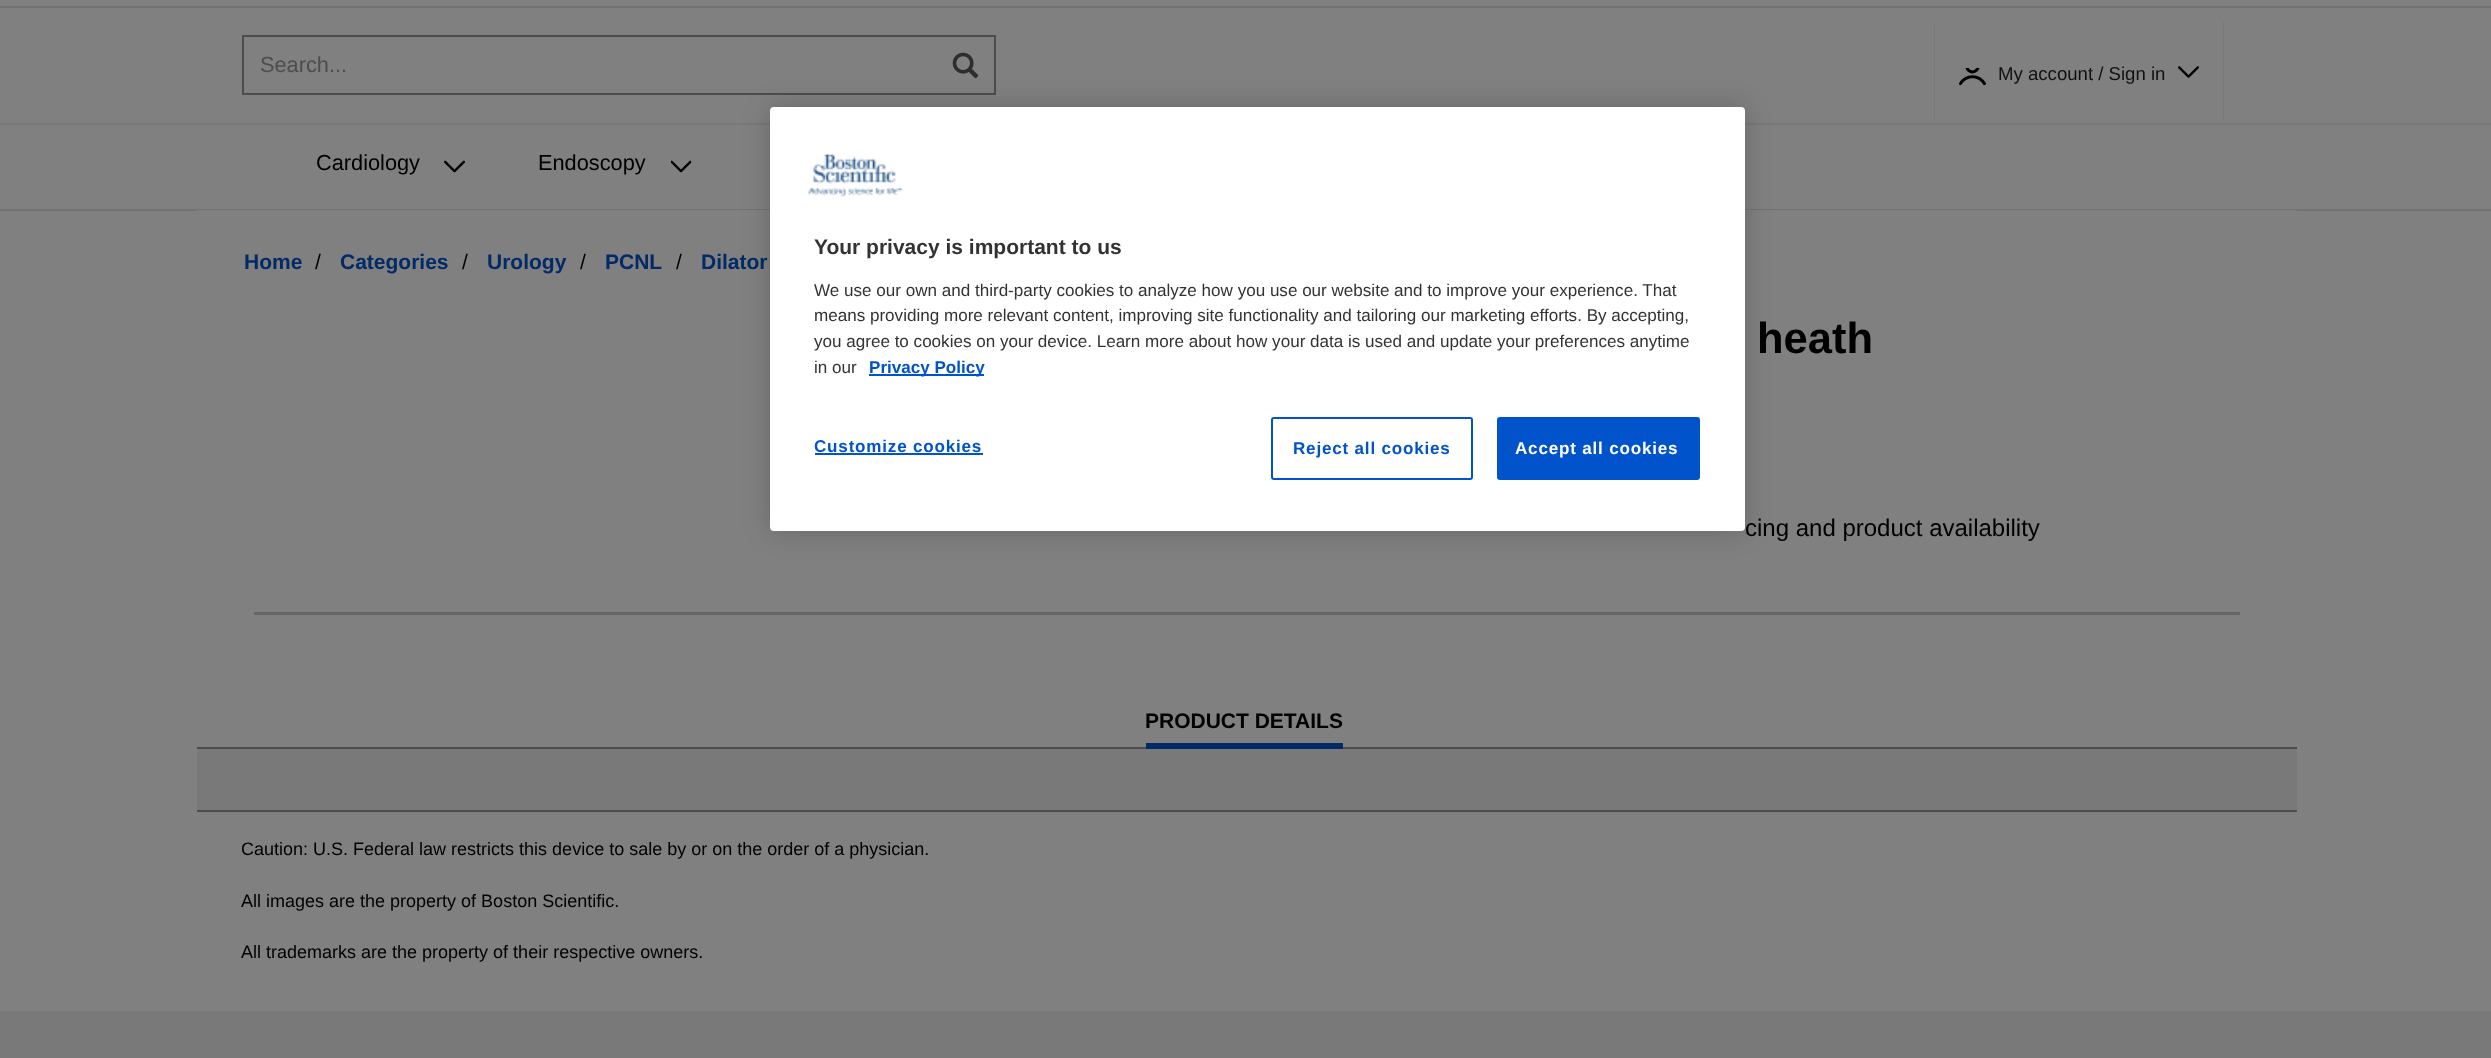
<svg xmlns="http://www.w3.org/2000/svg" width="2491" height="1058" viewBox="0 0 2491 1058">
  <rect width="100%" height="100%" fill="rgb(128,128,128)"/>
  <rect x="0" y="6" width="2491" height="2" fill="rgb(115,115,115)"/>
  <rect x="243" y="36" width="752" height="58" fill="none" stroke="rgb(77,77,77)" stroke-width="2"/>
  <text x="260" y="72" font-family="Liberation Sans" font-size="21.75" fill="rgb(77,77,77)">Search...</text>
  <image x="952" y="52" width="27" height="27" href="pic1.png"/>
  <path d="M2224 22V123L2223 118V22Z" fill="rgb(121,121,121)"/>
  <path d="M1934 123V22H1935V118Z" fill="rgb(121,121,121)"/>
  <image x="1959" y="68" width="27" height="18" href="pic2.png"/>
  <text x="1998" y="80" font-family="Liberation Sans" font-size="18.6" fill="rgb(17,17,17)">My account / Sign in</text>
  <image x="2178" y="66" width="21" height="12" href="pic3.png"/>
  <rect x="0" y="123" width="2491" height="2" fill="rgb(120,121,121)"/>
  <rect x="0" y="209" width="2491" height="2" fill="rgb(115,115,115)"/>
  <text x="316" y="170" font-family="Liberation Sans" font-size="21.75" fill="rgb(0,0,0)">Cardiology</text>
  <image x="444" y="160" width="21" height="13" href="pic4.png"/>
  <text x="538" y="170" font-family="Liberation Sans" font-size="21.75" fill="rgb(0,0,0)">Endoscopy</text>
  <image x="671" y="160" width="21" height="13" href="pic5.png"/>
  <rect x="197" y="210" width="2100" height="1" fill="rgb(128,128,128)"/>
  <text x="244" y="269" font-family="Liberation Sans" font-size="21" font-weight="bold" fill="rgb(1,42,102)">Home</text>
  <text x="315" y="269" font-family="Liberation Sans" font-size="21" fill="rgb(0,0,0)">/</text>
  <text x="340" y="269" font-family="Liberation Sans" font-size="21" font-weight="bold" fill="rgb(1,42,102)">Categories</text>
  <text x="462" y="269" font-family="Liberation Sans" font-size="21" fill="rgb(0,0,0)">/</text>
  <text x="487" y="269" font-family="Liberation Sans" font-size="21" font-weight="bold" fill="rgb(1,42,102)">Urology</text>
  <text x="580" y="269" font-family="Liberation Sans" font-size="21" fill="rgb(0,0,0)">/</text>
  <text x="605" y="269" font-family="Liberation Sans" font-size="21" font-weight="bold" fill="rgb(1,42,102)">PCNL</text>
  <text x="676" y="269" font-family="Liberation Sans" font-size="21" fill="rgb(0,0,0)">/</text>
  <text x="701" y="269" font-family="Liberation Sans" font-size="21" font-weight="bold" fill="rgb(1,42,102)">Dilator</text>
  <text x="1757" y="353" font-family="Liberation Sans" font-size="43.5" font-weight="bold" fill="rgb(0,0,0)">heath</text>
  <text x="1745" y="536" font-family="Liberation Sans" font-size="24" fill="rgb(0,0,0)">cing and product availability</text>
  <rect x="254" y="612" width="1986" height="3" fill="rgb(102,102,102)"/>
  <rect x="197" y="747" width="2100" height="2" fill="rgb(77,77,77)"/>
  <rect x="1146" y="743" width="197" height="6" fill="rgb(1,42,102)"/>
  <text x="1145" y="728" font-family="Liberation Sans" font-size="21" font-weight="bold" fill="rgb(0,0,0)">PRODUCT DETAILS</text>
  <rect x="197" y="749" width="2100" height="61" fill="rgb(121,121,121)"/>
  <rect x="197" y="810" width="2100" height="2" fill="rgb(77,77,77)"/>
  <g font-family="Liberation Sans" font-size="18" fill="rgb(0,0,0)">
    <text x="241" y="855">Caution: U.S. Federal law restricts this device to sale by or on the order of a physician.</text>
    <text x="241" y="907">All images are the property of Boston Scientific.</text>
    <text x="241" y="958">All trademarks are the property of their respective owners.</text>
  </g>
  <rect x="0" y="1011" width="2491" height="47" fill="rgb(121,121,121)"/>
  <rect x="770" y="107" width="975" height="424" rx="4" fill="rgba(0,0,0,0.2)" filter="blur(13.5px)"/>
  <rect x="770" y="107" width="975" height="424" rx="4" fill="rgb(255,255,255)"/>
  <image x="808" y="153" width="94" height="44" href="pic6.png"/>
  <text x="814" y="254" font-family="Liberation Sans" font-size="21" font-weight="bold" fill="rgb(51,51,51)">Your privacy is important to us</text>
  <g font-family="Liberation Sans" font-size="17.07" fill="rgb(51,51,51)">
    <text>
      <tspan x="814" y="296">We use our own and third-party cookies to analyze how you use our website and to improve your experience. That</tspan>
      <tspan x="814" y="321">means providing more relevant content, improving site functionality and tailoring our marketing efforts. By accepting,</tspan>
      <tspan x="814" y="347">you agree to cookies on your device. Learn more about how your data is used and update your preferences anytime</tspan>
      <tspan x="814" y="373">in our</tspan>
    </text>
  </g>
  <rect x="869" y="374" width="115" height="2" fill="rgb(1,83,204)"/>
  <text x="869" y="373" font-family="Liberation Sans" font-size="17.07" font-weight="bold" fill="rgb(1,83,204)">Privacy Policy</text>
  <text x="814" y="452" font-family="Liberation Sans" font-size="17.07" font-weight="bold" letter-spacing="0.8" fill="rgb(1,83,204)">Customize cookies</text>
  <rect x="815" y="453" width="168" height="2" fill="rgb(1,83,204)"/>
  <rect x="1272" y="418" width="200" height="61" rx="2" fill="none" stroke="rgb(1,83,204)" stroke-width="2"/>
  <text x="1293" y="454" font-family="Liberation Sans" font-size="17.07" font-weight="bold" letter-spacing="0.8" fill="rgb(1,83,204)">Reject all cookies</text>
  <rect x="1498" y="418" width="201" height="61" rx="2" fill="rgb(1,83,204)" stroke="rgb(1,83,204)" stroke-width="2"/>
  <text x="1515" y="454" font-family="Liberation Sans" font-size="17.07" font-weight="bold" letter-spacing="0.8" fill="rgb(255,255,255)">Accept all cookies</text>
</svg>
